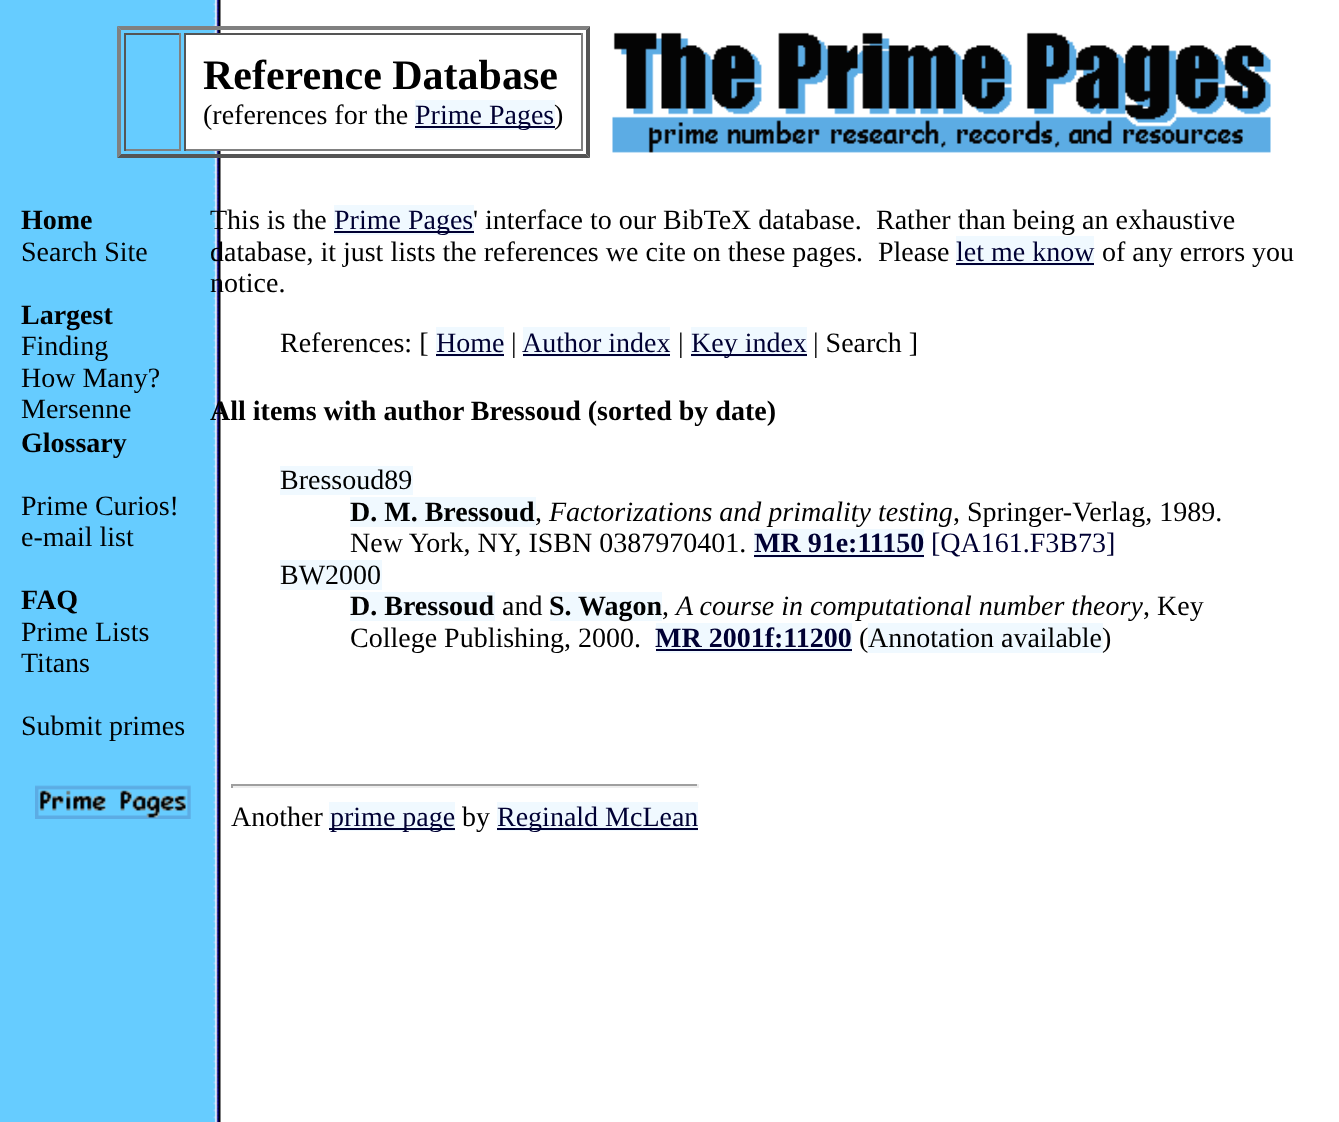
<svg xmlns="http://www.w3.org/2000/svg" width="1339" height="1122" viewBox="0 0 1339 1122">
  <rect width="100%" height="100%" fill="rgb(255,255,255)"/>
  <image x="0" y="0" width="221" height="1122" href="pic1.png"/>
  <path d="M117 26H590L586 30H121Z" fill="rgb(128,128,128)"/>
  <path d="M590 26V158L586 154V30Z" fill="rgb(85,85,85)"/>
  <path d="M590 158H117L121 154H586Z" fill="rgb(85,85,85)"/>
  <path d="M117 158V26L121 30V154Z" fill="rgb(128,128,128)"/>
  <rect x="124" y="33" width="56" height="2" fill="rgb(85,85,85)"/>
  <rect x="179" y="33" width="2" height="118" fill="rgb(128,128,128)"/>
  <rect x="124" y="149" width="56" height="2" fill="rgb(128,128,128)"/>
  <rect x="124" y="33" width="2" height="118" fill="rgb(85,85,85)"/>
  <rect x="186" y="35" width="35" height="114" fill="rgb(255,255,255)"/>
  <rect x="184" y="33" width="399" height="2" fill="rgb(85,85,85)"/>
  <rect x="581" y="33" width="2" height="118" fill="rgb(128,128,128)"/>
  <rect x="184" y="149" width="399" height="2" fill="rgb(128,128,128)"/>
  <rect x="184" y="33" width="2" height="118" fill="rgb(85,85,85)"/>
  <text x="203" y="89" font-family="Liberation Serif" font-size="42" font-weight="bold" fill="rgb(0,0,0)">Reference Database</text>
  <text x="203" y="124" font-family="Liberation Serif" font-size="28" fill="rgb(0,0,0)">(references for the</text>
  <rect x="415" y="100" width="140" height="30" fill="rgb(240,249,255)"/>
  <rect x="415" y="126" width="140" height="2" fill="rgb(0,0,51)"/>
  <text x="415" y="124" font-family="Liberation Serif" font-size="28" fill="rgb(0,0,51)">Prime Pages</text>
  <text x="554" y="124" font-family="Liberation Serif" font-size="28" fill="rgb(0,0,0)">)</text>
  <image x="612" y="32" width="659" height="121" href="pic2.png"/>
  <text x="21" y="229" font-family="Liberation Serif" font-size="28" font-weight="bold" fill="rgb(0,0,0)">Home</text>
  <text x="21" y="261" font-family="Liberation Serif" font-size="28" fill="rgb(0,0,0)">Search Site</text>
  <text x="21" y="324" font-family="Liberation Serif" font-size="28" font-weight="bold" fill="rgb(0,0,0)">Largest</text>
  <g font-family="Liberation Serif" font-size="28" fill="rgb(0,0,0)">
    <text>
      <tspan x="21" y="355">Finding</tspan>
      <tspan x="21" y="387">How Many?</tspan>
      <tspan x="21" y="418">Mersenne</tspan>
    </text>
  </g>
  <text x="21" y="452" font-family="Liberation Serif" font-size="28" font-weight="bold" fill="rgb(0,0,0)">Glossary</text>
  <g font-family="Liberation Serif" font-size="28" fill="rgb(0,0,0)">
    <text>
      <tspan x="21" y="515">Prime Curios!</tspan>
      <tspan x="21" y="546">e-mail list</tspan>
    </text>
  </g>
  <text x="21" y="609" font-family="Liberation Serif" font-size="28" font-weight="bold" fill="rgb(0,0,0)">FAQ</text>
  <g font-family="Liberation Serif" font-size="28" fill="rgb(0,0,0)">
    <text>
      <tspan x="21" y="641">Prime Lists</tspan>
      <tspan x="21" y="672">Titans</tspan>
    </text>
    <text x="21" y="735">Submit primes</text>
    <text x="210" y="229">This is the</text>
  </g>
  <rect x="334" y="205" width="140" height="30" fill="rgb(240,249,255)"/>
  <rect x="334" y="231" width="140" height="2" fill="rgb(0,0,51)"/>
  <text x="334" y="229" font-family="Liberation Serif" font-size="28" fill="rgb(0,0,51)">Prime Pages</text>
  <g font-family="Liberation Serif" font-size="28" fill="rgb(0,0,0)">
    <text x="473" y="229">' interface to our BibTeX database.</text>
    <text x="876" y="229">Rather than being an exhaustive</text>
    <text x="210" y="261">database, it just lists the references we cite on these pages.</text>
    <text x="878" y="261">Please</text>
  </g>
  <rect x="956" y="236" width="138" height="30" fill="rgb(240,249,255)"/>
  <text x="956" y="261" font-family="Liberation Serif" font-size="28" fill="rgb(0,0,51)">let me know</text>
  <rect x="956" y="263" width="138" height="2" fill="rgb(0,0,51)"/>
  <g font-family="Liberation Serif" font-size="28" fill="rgb(0,0,0)">
    <text x="1102" y="261">of any errors you</text>
    <text x="210" y="292">notice.</text>
    <text x="280" y="352">References: [</text>
  </g>
  <rect x="436" y="327" width="68" height="30" fill="rgb(240,249,255)"/>
  <text x="436" y="352" font-family="Liberation Serif" font-size="28" fill="rgb(0,0,51)">Home</text>
  <rect x="436" y="354" width="68" height="2" fill="rgb(0,0,51)"/>
  <text x="511" y="352" font-family="Liberation Serif" font-size="28" fill="rgb(0,0,0)">|</text>
  <rect x="523" y="327" width="147" height="30" fill="rgb(240,249,255)"/>
  <text x="522" y="352" font-family="Liberation Serif" font-size="28" fill="rgb(0,0,51)">Author index</text>
  <rect x="523" y="354" width="147" height="2" fill="rgb(0,0,51)"/>
  <text x="678" y="352" font-family="Liberation Serif" font-size="28" fill="rgb(0,0,0)">|</text>
  <rect x="691" y="327" width="116" height="30" fill="rgb(240,249,255)"/>
  <rect x="691" y="354" width="116" height="2" fill="rgb(0,0,51)"/>
  <text x="691" y="352" font-family="Liberation Serif" font-size="28" fill="rgb(0,0,51)">Key index</text>
  <text x="813" y="352" font-family="Liberation Serif" font-size="28" fill="rgb(0,0,0)">| Search ]</text>
  <text x="210" y="420" font-family="Liberation Serif" font-size="28" font-weight="bold" fill="rgb(0,0,0)">All items with author Bressoud (sorted by date)</text>
  <rect x="280" y="466" width="133" height="29" fill="rgb(240,249,255)"/>
  <text x="280" y="489" font-family="Liberation Serif" font-size="28" fill="rgb(0,0,0)">Bressoud89</text>
  <rect x="350" y="497" width="186" height="30" fill="rgb(240,249,255)"/>
  <text x="350" y="521" font-family="Liberation Serif" font-size="28" font-weight="bold" fill="rgb(0,0,0)">D. M. Bressoud</text>
  <text x="535" y="521" font-family="Liberation Serif" font-size="28" fill="rgb(0,0,0)">,</text>
  <text x="549" y="521" font-family="Liberation Serif" font-size="28" font-style="italic" fill="rgb(0,0,0)">Factorizations and primality testing</text>
  <g font-family="Liberation Serif" font-size="28" fill="rgb(0,0,0)">
    <text x="953" y="521">, Springer-Verlag, 1989.</text>
    <text x="350" y="552">New York, NY, ISBN 0387970401.</text>
  </g>
  <rect x="754" y="529" width="170" height="29" fill="rgb(240,249,255)"/>
  <text x="754" y="552" font-family="Liberation Serif" font-size="28" font-weight="bold" fill="rgb(0,0,51)">MR 91e:11150</text>
  <rect x="754" y="555" width="170" height="2" fill="rgb(0,0,51)"/>
  <text x="931" y="552" font-family="Liberation Serif" font-size="28" fill="rgb(0,0,51)">[QA161.F3B73]</text>
  <rect x="280" y="560" width="102" height="30" fill="rgb(240,249,255)"/>
  <text x="280" y="584" font-family="Liberation Serif" font-size="28" fill="rgb(0,0,0)">BW2000</text>
  <rect x="350" y="592" width="145" height="29" fill="rgb(240,249,255)"/>
  <text x="350" y="615" font-family="Liberation Serif" font-size="28" font-weight="bold" fill="rgb(0,0,0)">D. Bressoud</text>
  <text x="502" y="615" font-family="Liberation Serif" font-size="28" fill="rgb(0,0,0)">and</text>
  <rect x="550" y="592" width="112" height="29" fill="rgb(240,249,255)"/>
  <text x="549" y="615" font-family="Liberation Serif" font-size="28" font-weight="bold" fill="rgb(0,0,0)">S. Wagon</text>
  <text x="662" y="615" font-family="Liberation Serif" font-size="28" fill="rgb(0,0,0)">,</text>
  <text x="676" y="615" font-family="Liberation Serif" font-size="28" font-style="italic" fill="rgb(0,0,0)">A course in computational number theory</text>
  <g font-family="Liberation Serif" font-size="28" fill="rgb(0,0,0)">
    <text x="1143" y="615">, Key</text>
    <text x="350" y="647">College Publishing, 2000.</text>
  </g>
  <rect x="656" y="623" width="196" height="30" fill="rgb(240,249,255)"/>
  <text x="655" y="647" font-family="Liberation Serif" font-size="28" font-weight="bold" fill="rgb(0,0,51)">MR 2001f:11200</text>
  <rect x="656" y="649" width="196" height="2" fill="rgb(0,0,51)"/>
  <text x="859" y="647" font-family="Liberation Serif" font-size="28" fill="rgb(0,0,0)">(</text>
  <rect x="868" y="623" width="235" height="30" fill="rgb(240,249,255)"/>
  <text x="868" y="647" font-family="Liberation Serif" font-size="28" fill="rgb(0,0,0)">Annotation available)</text>
  <image x="35" y="785" width="156" height="34" href="pic3.png"/>
  <rect x="231" y="784" width="467" height="2" fill="rgb(159,159,159)"/>
  <rect x="697" y="784" width="2" height="4" fill="rgb(238,238,238)"/>
  <rect x="231" y="786" width="467" height="2" fill="rgb(238,238,238)"/>
  <rect x="231" y="784" width="2" height="4" fill="rgb(159,159,159)"/>
  <text x="231" y="826" font-family="Liberation Serif" font-size="28" fill="rgb(0,0,0)">Another</text>
  <rect x="329" y="802" width="126" height="29" fill="rgb(240,249,255)"/>
  <rect x="329" y="828" width="126" height="2" fill="rgb(0,0,51)"/>
  <text x="330" y="826" font-family="Liberation Serif" font-size="28" fill="rgb(0,0,51)">prime page</text>
  <text x="462" y="826" font-family="Liberation Serif" font-size="28" fill="rgb(0,0,0)">by</text>
  <rect x="497" y="802" width="201" height="29" fill="rgb(240,249,255)"/>
  <rect x="497" y="828" width="201" height="2" fill="rgb(0,0,51)"/>
  <text x="497" y="826" font-family="Liberation Serif" font-size="28" fill="rgb(0,0,51)">Reginald McLean</text>
</svg>
